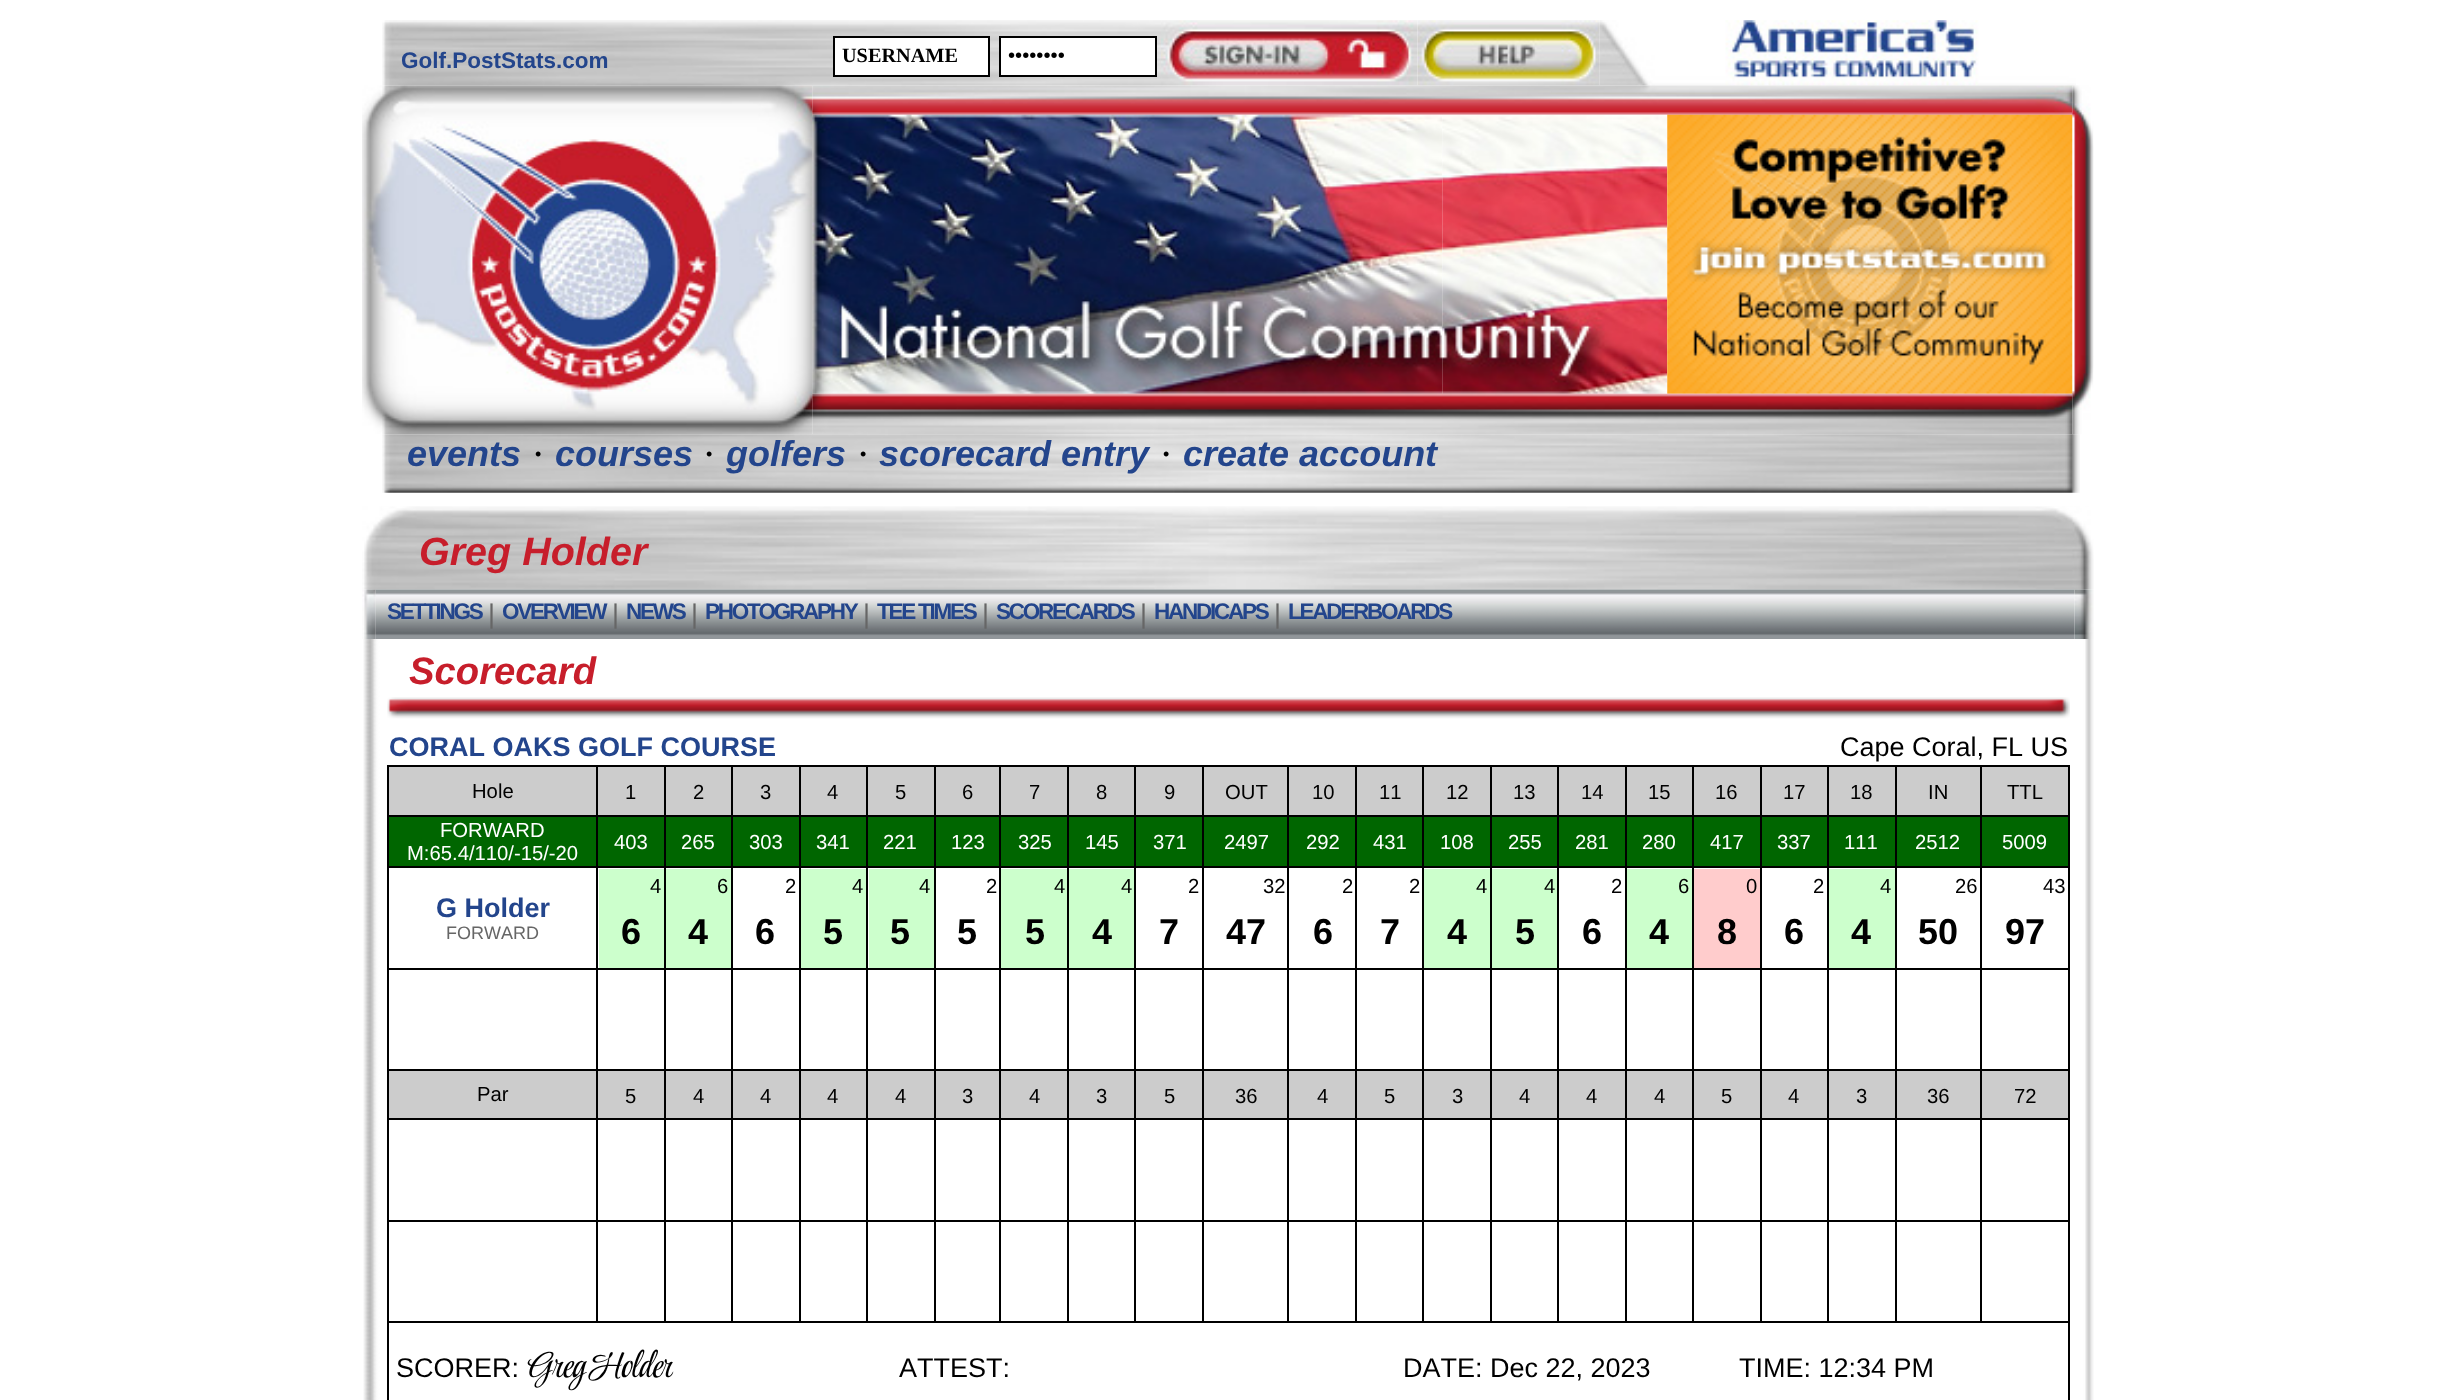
<svg xmlns="http://www.w3.org/2000/svg" width="2457" height="1400" viewBox="0 0 2457 1400">
  <style>*{font-kerning:none!important;font-variant-ligatures:none!important}</style>
  <rect width="100%" height="100%" fill="rgb(255,255,255)"/>
  <image x="382" y="20" width="779" height="66" href="pic1.png"/>
  <text x="401" y="68" font-family="Liberation Sans" font-size="22.5" font-weight="bold" fill="rgb(35,69,140)">Golf.PostStats.com</text>
  <rect x="834" y="37" width="155" height="39" fill="rgb(255,255,255)" stroke="rgb(0,0,0)" stroke-width="2"/>
  <text x="842" y="62" font-family="Liberation Serif" font-size="20.25" font-weight="bold" fill="rgb(0,0,0)">USERNAME</text>
  <rect x="1000" y="37" width="156" height="39" fill="rgb(255,255,255)" stroke="rgb(0,0,0)" stroke-width="2"/>
  <text x="1008" y="62" font-family="Liberation Serif" font-size="20.25" font-weight="bold" fill="rgb(0,0,0)">••••••••</text>
  <image x="1161" y="20" width="257" height="66" href="pic2.png"/>
  <image x="1417" y="20" width="183" height="66" href="pic3.png"/>
  <image x="1599" y="20" width="477" height="66" href="pic4.png"/>
  <image x="362" y="85" width="451" height="350" href="pic5.png"/>
  <image x="812" y="85" width="1261" height="30" href="pic6.png"/>
  <image x="2072" y="85" width="22" height="350" href="pic7.png"/>
  <image x="812" y="114" width="631" height="280" href="pic8.png"/>
  <image x="1442" y="114" width="226" height="280" href="pic9.png"/>
  <image x="1667" y="114" width="406" height="280" href="pic10.png"/>
  <image x="812" y="393" width="1261" height="42" href="pic11.png"/>
  <image x="382" y="434" width="1698" height="59" href="pic12.png"/>
  <text x="407" y="466" font-family="Liberation Sans" font-size="36" font-weight="bold" font-style="italic" fill="rgb(35,69,140)">events</text>
  <text x="535" y="460" font-family="Liberation Sans" font-size="18" fill="rgb(0,0,0)">•</text>
  <text x="555" y="466" font-family="Liberation Sans" font-size="36" font-weight="bold" font-style="italic" fill="rgb(35,69,140)">courses</text>
  <text x="706" y="460" font-family="Liberation Sans" font-size="18" fill="rgb(0,0,0)">•</text>
  <text x="726" y="466" font-family="Liberation Sans" font-size="36" font-weight="bold" font-style="italic" fill="rgb(35,69,140)">golfers</text>
  <text x="860" y="460" font-family="Liberation Sans" font-size="18" fill="rgb(0,0,0)">•</text>
  <text x="879" y="466" font-family="Liberation Sans" font-size="36" font-weight="bold" font-style="italic" fill="rgb(35,69,140)">scorecard entry</text>
  <text x="1163" y="460" font-family="Liberation Sans" font-size="18" fill="rgb(0,0,0)">•</text>
  <text x="1183" y="466" font-family="Liberation Sans" font-size="36" font-weight="bold" font-style="italic" fill="rgb(35,69,140)">create account</text>
  <image x="362" y="506" width="1732" height="84" href="pic13.png"/>
  <text x="419" y="565" font-family="Liberation Sans" font-size="39.5" font-weight="bold" font-style="italic" fill="rgb(199,30,43)">Greg Holder</text>
  <image x="362" y="589" width="14" height="50" href="pic14.png"/>
  <image x="375" y="589" width="1700" height="50" href="pic15.png"/>
  <text x="387" y="619" font-family="Liberation Sans" font-size="22.5" font-weight="bold" letter-spacing="-2.25" fill="rgb(35,69,140)">SETTINGS</text>
  <text x="488" y="623" font-family="Liberation Sans" font-size="27" fill="rgb(102,102,102)">|</text>
  <text x="502" y="619" font-family="Liberation Sans" font-size="22.5" font-weight="bold" letter-spacing="-2.25" fill="rgb(35,69,140)">OVERVIEW</text>
  <text x="612" y="623" font-family="Liberation Sans" font-size="27" fill="rgb(102,102,102)">|</text>
  <text x="626" y="619" font-family="Liberation Sans" font-size="22.5" font-weight="bold" letter-spacing="-2.25" fill="rgb(35,69,140)">NEWS</text>
  <text x="691" y="623" font-family="Liberation Sans" font-size="27" fill="rgb(102,102,102)">|</text>
  <text x="705" y="619" font-family="Liberation Sans" font-size="22.5" font-weight="bold" letter-spacing="-2.25" fill="rgb(35,69,140)">PHOTOGRAPHY</text>
  <text x="863" y="623" font-family="Liberation Sans" font-size="27" fill="rgb(102,102,102)">|</text>
  <text x="877" y="619" font-family="Liberation Sans" font-size="22.5" font-weight="bold" letter-spacing="-2.25" fill="rgb(35,69,140)">TEE TIMES</text>
  <text x="982" y="623" font-family="Liberation Sans" font-size="27" fill="rgb(102,102,102)">|</text>
  <text x="996" y="619" font-family="Liberation Sans" font-size="22.5" font-weight="bold" letter-spacing="-2.25" fill="rgb(35,69,140)">SCORECARDS</text>
  <text x="1140" y="623" font-family="Liberation Sans" font-size="27" fill="rgb(102,102,102)">|</text>
  <text x="1154" y="619" font-family="Liberation Sans" font-size="22.5" font-weight="bold" letter-spacing="-2.25" fill="rgb(35,69,140)">HANDICAPS</text>
  <text x="1274" y="623" font-family="Liberation Sans" font-size="27" fill="rgb(102,102,102)">|</text>
  <text x="1288" y="619" font-family="Liberation Sans" font-size="22.5" font-weight="bold" letter-spacing="-2.25" fill="rgb(35,69,140)">LEADERBOARDS</text>
  <image x="2074" y="589" width="20" height="50" href="pic16.png"/>
  <image x="363" y="639" width="1731" height="761" href="pic17.png"/>
  <image x="387" y="697" width="1683" height="22" href="pic18.png"/>
  <text x="409" y="684" font-family="Liberation Sans" font-size="38.25" font-weight="bold" font-style="italic" fill="rgb(199,30,43)">Scorecard</text>
  <text x="389" y="756" font-family="Liberation Sans" font-size="27" font-weight="bold" fill="rgb(35,69,140)">CORAL OAKS GOLF COURSE</text>
  <text x="1840" y="756" font-family="Liberation Sans" font-size="27" fill="rgb(0,0,0)">Cape Coral, FL US</text>
  <rect x="387" y="1321" width="1683" height="2" fill="rgb(0,0,0)"/>
  <rect x="389" y="767" width="207" height="48" fill="rgb(204,204,204)"/>
  <rect x="387" y="765" width="1683" height="2" fill="rgb(0,0,0)"/>
  <rect x="387" y="765" width="2" height="50" fill="rgb(0,0,0)"/>
  <text x="472" y="798" font-family="Liberation Sans" font-size="20.25" fill="rgb(0,0,0)">Hole</text>
  <rect x="598" y="767" width="66" height="48" fill="rgb(204,204,204)"/>
  <rect x="596" y="765" width="2" height="50" fill="rgb(0,0,0)"/>
  <text x="625" y="799" font-family="Liberation Sans" font-size="20.25" fill="rgb(0,0,0)">1</text>
  <rect x="666" y="767" width="65" height="48" fill="rgb(204,204,204)"/>
  <rect x="664" y="765" width="2" height="50" fill="rgb(0,0,0)"/>
  <text x="693" y="799" font-family="Liberation Sans" font-size="20.25" fill="rgb(0,0,0)">2</text>
  <rect x="733" y="767" width="66" height="48" fill="rgb(204,204,204)"/>
  <rect x="731" y="765" width="2" height="50" fill="rgb(0,0,0)"/>
  <text x="760" y="799" font-family="Liberation Sans" font-size="20.25" fill="rgb(0,0,0)">3</text>
  <rect x="801" y="767" width="65" height="48" fill="rgb(204,204,204)"/>
  <rect x="799" y="765" width="2" height="50" fill="rgb(0,0,0)"/>
  <text x="827" y="799" font-family="Liberation Sans" font-size="20.25" fill="rgb(0,0,0)">4</text>
  <rect x="868" y="767" width="66" height="48" fill="rgb(204,204,204)"/>
  <rect x="866" y="765" width="2" height="50" fill="rgb(0,0,0)"/>
  <text x="895" y="799" font-family="Liberation Sans" font-size="20.25" fill="rgb(0,0,0)">5</text>
  <rect x="936" y="767" width="63" height="48" fill="rgb(204,204,204)"/>
  <rect x="934" y="765" width="2" height="50" fill="rgb(0,0,0)"/>
  <text x="962" y="799" font-family="Liberation Sans" font-size="20.25" fill="rgb(0,0,0)">6</text>
  <rect x="1001" y="767" width="66" height="48" fill="rgb(204,204,204)"/>
  <rect x="999" y="765" width="2" height="50" fill="rgb(0,0,0)"/>
  <text x="1029" y="799" font-family="Liberation Sans" font-size="20.25" fill="rgb(0,0,0)">7</text>
  <rect x="1069" y="767" width="65" height="48" fill="rgb(204,204,204)"/>
  <rect x="1067" y="765" width="2" height="50" fill="rgb(0,0,0)"/>
  <text x="1096" y="799" font-family="Liberation Sans" font-size="20.25" fill="rgb(0,0,0)">8</text>
  <rect x="1136" y="767" width="66" height="48" fill="rgb(204,204,204)"/>
  <rect x="1134" y="765" width="2" height="50" fill="rgb(0,0,0)"/>
  <text x="1164" y="799" font-family="Liberation Sans" font-size="20.25" fill="rgb(0,0,0)">9</text>
  <rect x="1204" y="767" width="83" height="48" fill="rgb(204,204,204)"/>
  <rect x="1202" y="765" width="2" height="50" fill="rgb(0,0,0)"/>
  <text x="1225" y="799" font-family="Liberation Sans" font-size="20.25" fill="rgb(0,0,0)">OUT</text>
  <rect x="1289" y="767" width="66" height="48" fill="rgb(204,204,204)"/>
  <rect x="1287" y="765" width="2" height="50" fill="rgb(0,0,0)"/>
  <text x="1312" y="799" font-family="Liberation Sans" font-size="20.25" fill="rgb(0,0,0)">10</text>
  <rect x="1357" y="767" width="65" height="48" fill="rgb(204,204,204)"/>
  <rect x="1355" y="765" width="2" height="50" fill="rgb(0,0,0)"/>
  <text x="1379" y="799" font-family="Liberation Sans" font-size="20.25" fill="rgb(0,0,0)">11</text>
  <rect x="1424" y="767" width="66" height="48" fill="rgb(204,204,204)"/>
  <rect x="1422" y="765" width="2" height="50" fill="rgb(0,0,0)"/>
  <text x="1446" y="799" font-family="Liberation Sans" font-size="20.25" fill="rgb(0,0,0)">12</text>
  <rect x="1492" y="767" width="65" height="48" fill="rgb(204,204,204)"/>
  <rect x="1490" y="765" width="2" height="50" fill="rgb(0,0,0)"/>
  <text x="1513" y="799" font-family="Liberation Sans" font-size="20.25" fill="rgb(0,0,0)">13</text>
  <rect x="1559" y="767" width="66" height="48" fill="rgb(204,204,204)"/>
  <rect x="1557" y="765" width="2" height="50" fill="rgb(0,0,0)"/>
  <text x="1581" y="799" font-family="Liberation Sans" font-size="20.25" fill="rgb(0,0,0)">14</text>
  <rect x="1627" y="767" width="65" height="48" fill="rgb(204,204,204)"/>
  <rect x="1625" y="765" width="2" height="50" fill="rgb(0,0,0)"/>
  <text x="1648" y="799" font-family="Liberation Sans" font-size="20.25" fill="rgb(0,0,0)">15</text>
  <rect x="1694" y="767" width="66" height="48" fill="rgb(204,204,204)"/>
  <rect x="1692" y="765" width="2" height="50" fill="rgb(0,0,0)"/>
  <text x="1715" y="799" font-family="Liberation Sans" font-size="20.25" fill="rgb(0,0,0)">16</text>
  <rect x="1762" y="767" width="65" height="48" fill="rgb(204,204,204)"/>
  <rect x="1760" y="765" width="2" height="50" fill="rgb(0,0,0)"/>
  <text x="1783" y="799" font-family="Liberation Sans" font-size="20.25" fill="rgb(0,0,0)">17</text>
  <rect x="1829" y="767" width="66" height="48" fill="rgb(204,204,204)"/>
  <rect x="1827" y="765" width="2" height="50" fill="rgb(0,0,0)"/>
  <text x="1850" y="799" font-family="Liberation Sans" font-size="20.25" fill="rgb(0,0,0)">18</text>
  <rect x="1897" y="767" width="83" height="48" fill="rgb(204,204,204)"/>
  <rect x="1895" y="765" width="2" height="50" fill="rgb(0,0,0)"/>
  <text x="1928" y="799" font-family="Liberation Sans" font-size="20.25" fill="rgb(0,0,0)">IN</text>
  <rect x="1982" y="767" width="86" height="48" fill="rgb(204,204,204)"/>
  <rect x="2068" y="765" width="2" height="50" fill="rgb(0,0,0)"/>
  <rect x="1980" y="765" width="2" height="50" fill="rgb(0,0,0)"/>
  <text x="2007" y="799" font-family="Liberation Sans" font-size="20.25" fill="rgb(0,0,0)">TTL</text>
  <rect x="389" y="817" width="207" height="49" fill="rgb(0,102,0)"/>
  <rect x="387" y="815" width="1683" height="2" fill="rgb(0,0,0)"/>
  <rect x="387" y="815" width="2" height="51" fill="rgb(0,0,0)"/>
  <g font-family="Liberation Sans" font-size="20.25" fill="rgb(255,255,255)">
    <text x="440" y="837">FORWARD</text>
    <text x="407" y="860">M:65.4/110/-15/-20</text>
  </g>
  <rect x="598" y="817" width="66" height="49" fill="rgb(0,102,0)"/>
  <rect x="596" y="815" width="2" height="51" fill="rgb(0,0,0)"/>
  <text x="614" y="849" font-family="Liberation Sans" font-size="20.25" fill="rgb(255,255,255)">403</text>
  <rect x="666" y="817" width="65" height="49" fill="rgb(0,102,0)"/>
  <rect x="664" y="815" width="2" height="51" fill="rgb(0,0,0)"/>
  <text x="681" y="849" font-family="Liberation Sans" font-size="20.25" fill="rgb(255,255,255)">265</text>
  <rect x="733" y="817" width="66" height="49" fill="rgb(0,102,0)"/>
  <rect x="731" y="815" width="2" height="51" fill="rgb(0,0,0)"/>
  <text x="749" y="849" font-family="Liberation Sans" font-size="20.25" fill="rgb(255,255,255)">303</text>
  <rect x="801" y="817" width="65" height="49" fill="rgb(0,102,0)"/>
  <rect x="799" y="815" width="2" height="51" fill="rgb(0,0,0)"/>
  <text x="816" y="849" font-family="Liberation Sans" font-size="20.25" fill="rgb(255,255,255)">341</text>
  <rect x="868" y="817" width="66" height="49" fill="rgb(0,102,0)"/>
  <rect x="866" y="815" width="2" height="51" fill="rgb(0,0,0)"/>
  <text x="883" y="849" font-family="Liberation Sans" font-size="20.25" fill="rgb(255,255,255)">221</text>
  <rect x="936" y="817" width="63" height="49" fill="rgb(0,102,0)"/>
  <rect x="934" y="815" width="2" height="51" fill="rgb(0,0,0)"/>
  <text x="951" y="849" font-family="Liberation Sans" font-size="20.25" fill="rgb(255,255,255)">123</text>
  <rect x="1001" y="817" width="66" height="49" fill="rgb(0,102,0)"/>
  <rect x="999" y="815" width="2" height="51" fill="rgb(0,0,0)"/>
  <text x="1018" y="849" font-family="Liberation Sans" font-size="20.25" fill="rgb(255,255,255)">325</text>
  <rect x="1069" y="817" width="65" height="49" fill="rgb(0,102,0)"/>
  <rect x="1067" y="815" width="2" height="51" fill="rgb(0,0,0)"/>
  <text x="1085" y="849" font-family="Liberation Sans" font-size="20.25" fill="rgb(255,255,255)">145</text>
  <rect x="1136" y="817" width="66" height="49" fill="rgb(0,102,0)"/>
  <rect x="1134" y="815" width="2" height="51" fill="rgb(0,0,0)"/>
  <text x="1153" y="849" font-family="Liberation Sans" font-size="20.25" fill="rgb(255,255,255)">371</text>
  <rect x="1204" y="817" width="83" height="49" fill="rgb(0,102,0)"/>
  <rect x="1202" y="815" width="2" height="51" fill="rgb(0,0,0)"/>
  <text x="1224" y="849" font-family="Liberation Sans" font-size="20.25" fill="rgb(255,255,255)">2497</text>
  <rect x="1289" y="817" width="66" height="49" fill="rgb(0,102,0)"/>
  <rect x="1287" y="815" width="2" height="51" fill="rgb(0,0,0)"/>
  <text x="1306" y="849" font-family="Liberation Sans" font-size="20.25" fill="rgb(255,255,255)">292</text>
  <rect x="1357" y="817" width="65" height="49" fill="rgb(0,102,0)"/>
  <rect x="1355" y="815" width="2" height="51" fill="rgb(0,0,0)"/>
  <text x="1373" y="849" font-family="Liberation Sans" font-size="20.25" fill="rgb(255,255,255)">431</text>
  <rect x="1424" y="817" width="66" height="49" fill="rgb(0,102,0)"/>
  <rect x="1422" y="815" width="2" height="51" fill="rgb(0,0,0)"/>
  <text x="1440" y="849" font-family="Liberation Sans" font-size="20.25" fill="rgb(255,255,255)">108</text>
  <rect x="1492" y="817" width="65" height="49" fill="rgb(0,102,0)"/>
  <rect x="1490" y="815" width="2" height="51" fill="rgb(0,0,0)"/>
  <text x="1508" y="849" font-family="Liberation Sans" font-size="20.25" fill="rgb(255,255,255)">255</text>
  <rect x="1559" y="817" width="66" height="49" fill="rgb(0,102,0)"/>
  <rect x="1557" y="815" width="2" height="51" fill="rgb(0,0,0)"/>
  <text x="1575" y="849" font-family="Liberation Sans" font-size="20.25" fill="rgb(255,255,255)">281</text>
  <rect x="1627" y="817" width="65" height="49" fill="rgb(0,102,0)"/>
  <rect x="1625" y="815" width="2" height="51" fill="rgb(0,0,0)"/>
  <text x="1642" y="849" font-family="Liberation Sans" font-size="20.25" fill="rgb(255,255,255)">280</text>
  <rect x="1694" y="817" width="66" height="49" fill="rgb(0,102,0)"/>
  <rect x="1692" y="815" width="2" height="51" fill="rgb(0,0,0)"/>
  <text x="1710" y="849" font-family="Liberation Sans" font-size="20.25" fill="rgb(255,255,255)">417</text>
  <rect x="1762" y="817" width="65" height="49" fill="rgb(0,102,0)"/>
  <rect x="1760" y="815" width="2" height="51" fill="rgb(0,0,0)"/>
  <text x="1777" y="849" font-family="Liberation Sans" font-size="20.25" fill="rgb(255,255,255)">337</text>
  <rect x="1829" y="817" width="66" height="49" fill="rgb(0,102,0)"/>
  <rect x="1827" y="815" width="2" height="51" fill="rgb(0,0,0)"/>
  <text x="1844" y="849" font-family="Liberation Sans" font-size="20.25" fill="rgb(255,255,255)">111</text>
  <rect x="1897" y="817" width="83" height="49" fill="rgb(0,102,0)"/>
  <rect x="1895" y="815" width="2" height="51" fill="rgb(0,0,0)"/>
  <text x="1915" y="849" font-family="Liberation Sans" font-size="20.25" fill="rgb(255,255,255)">2512</text>
  <rect x="1982" y="817" width="86" height="49" fill="rgb(0,102,0)"/>
  <rect x="2068" y="815" width="2" height="51" fill="rgb(0,0,0)"/>
  <rect x="1980" y="815" width="2" height="51" fill="rgb(0,0,0)"/>
  <text x="2002" y="849" font-family="Liberation Sans" font-size="20.25" fill="rgb(255,255,255)">5009</text>
  <rect x="387" y="866" width="1683" height="2" fill="rgb(0,0,0)"/>
  <rect x="387" y="866" width="2" height="102" fill="rgb(0,0,0)"/>
  <text x="436" y="917" font-family="Liberation Sans" font-size="27" font-weight="bold" fill="rgb(35,69,140)">G Holder</text>
  <text x="446" y="939" font-family="Liberation Sans" font-size="18" fill="rgb(102,102,102)">FORWARD</text>
  <rect x="596" y="866" width="2" height="102" fill="rgb(0,0,0)"/>
  <rect x="599" y="869" width="65" height="99" fill="rgb(204,255,204)"/>
  <text x="650" y="893" font-family="Liberation Sans" font-size="20.25" fill="rgb(0,0,0)">4</text>
  <text x="621" y="944" font-family="Liberation Sans" font-size="36" font-weight="bold" fill="rgb(0,0,0)">6</text>
  <rect x="664" y="866" width="2" height="102" fill="rgb(0,0,0)"/>
  <rect x="666" y="869" width="65" height="99" fill="rgb(204,255,204)"/>
  <text x="717" y="893" font-family="Liberation Sans" font-size="20.25" fill="rgb(0,0,0)">6</text>
  <text x="688" y="944" font-family="Liberation Sans" font-size="36" font-weight="bold" fill="rgb(0,0,0)">4</text>
  <rect x="731" y="866" width="2" height="102" fill="rgb(0,0,0)"/>
  <text x="785" y="893" font-family="Liberation Sans" font-size="20.25" fill="rgb(0,0,0)">2</text>
  <text x="755" y="944" font-family="Liberation Sans" font-size="36" font-weight="bold" fill="rgb(0,0,0)">6</text>
  <rect x="799" y="866" width="2" height="102" fill="rgb(0,0,0)"/>
  <rect x="801" y="869" width="65" height="99" fill="rgb(204,255,204)"/>
  <text x="852" y="893" font-family="Liberation Sans" font-size="20.25" fill="rgb(0,0,0)">4</text>
  <text x="823" y="944" font-family="Liberation Sans" font-size="36" font-weight="bold" fill="rgb(0,0,0)">5</text>
  <rect x="866" y="866" width="2" height="102" fill="rgb(0,0,0)"/>
  <rect x="869" y="869" width="65" height="99" fill="rgb(204,255,204)"/>
  <text x="919" y="893" font-family="Liberation Sans" font-size="20.25" fill="rgb(0,0,0)">4</text>
  <text x="890" y="944" font-family="Liberation Sans" font-size="36" font-weight="bold" fill="rgb(0,0,0)">5</text>
  <rect x="934" y="866" width="2" height="102" fill="rgb(0,0,0)"/>
  <text x="986" y="893" font-family="Liberation Sans" font-size="20.25" fill="rgb(0,0,0)">2</text>
  <text x="957" y="944" font-family="Liberation Sans" font-size="36" font-weight="bold" fill="rgb(0,0,0)">5</text>
  <rect x="999" y="866" width="2" height="102" fill="rgb(0,0,0)"/>
  <rect x="1001" y="869" width="66" height="99" fill="rgb(204,255,204)"/>
  <text x="1054" y="893" font-family="Liberation Sans" font-size="20.25" fill="rgb(0,0,0)">4</text>
  <text x="1025" y="944" font-family="Liberation Sans" font-size="36" font-weight="bold" fill="rgb(0,0,0)">5</text>
  <rect x="1067" y="866" width="2" height="102" fill="rgb(0,0,0)"/>
  <rect x="1069" y="869" width="65" height="99" fill="rgb(204,255,204)"/>
  <text x="1121" y="893" font-family="Liberation Sans" font-size="20.25" fill="rgb(0,0,0)">4</text>
  <text x="1092" y="944" font-family="Liberation Sans" font-size="36" font-weight="bold" fill="rgb(0,0,0)">4</text>
  <rect x="1134" y="866" width="2" height="102" fill="rgb(0,0,0)"/>
  <text x="1188" y="893" font-family="Liberation Sans" font-size="20.25" fill="rgb(0,0,0)">2</text>
  <text x="1159" y="944" font-family="Liberation Sans" font-size="36" font-weight="bold" fill="rgb(0,0,0)">7</text>
  <rect x="1202" y="866" width="2" height="102" fill="rgb(0,0,0)"/>
  <text x="1263" y="893" font-family="Liberation Sans" font-size="20.25" fill="rgb(0,0,0)">32</text>
  <text x="1226" y="944" font-family="Liberation Sans" font-size="36" font-weight="bold" fill="rgb(0,0,0)">47</text>
  <rect x="1287" y="866" width="2" height="102" fill="rgb(0,0,0)"/>
  <text x="1342" y="893" font-family="Liberation Sans" font-size="20.25" fill="rgb(0,0,0)">2</text>
  <text x="1313" y="944" font-family="Liberation Sans" font-size="36" font-weight="bold" fill="rgb(0,0,0)">6</text>
  <rect x="1355" y="866" width="2" height="102" fill="rgb(0,0,0)"/>
  <text x="1409" y="893" font-family="Liberation Sans" font-size="20.25" fill="rgb(0,0,0)">2</text>
  <text x="1380" y="944" font-family="Liberation Sans" font-size="36" font-weight="bold" fill="rgb(0,0,0)">7</text>
  <rect x="1422" y="866" width="2" height="102" fill="rgb(0,0,0)"/>
  <rect x="1424" y="869" width="66" height="99" fill="rgb(204,255,204)"/>
  <text x="1476" y="893" font-family="Liberation Sans" font-size="20.25" fill="rgb(0,0,0)">4</text>
  <text x="1447" y="944" font-family="Liberation Sans" font-size="36" font-weight="bold" fill="rgb(0,0,0)">4</text>
  <rect x="1490" y="866" width="2" height="102" fill="rgb(0,0,0)"/>
  <rect x="1492" y="869" width="65" height="99" fill="rgb(204,255,204)"/>
  <text x="1544" y="893" font-family="Liberation Sans" font-size="20.25" fill="rgb(0,0,0)">4</text>
  <text x="1515" y="944" font-family="Liberation Sans" font-size="36" font-weight="bold" fill="rgb(0,0,0)">5</text>
  <rect x="1557" y="866" width="2" height="102" fill="rgb(0,0,0)"/>
  <text x="1611" y="893" font-family="Liberation Sans" font-size="20.25" fill="rgb(0,0,0)">2</text>
  <text x="1582" y="944" font-family="Liberation Sans" font-size="36" font-weight="bold" fill="rgb(0,0,0)">6</text>
  <rect x="1625" y="866" width="2" height="102" fill="rgb(0,0,0)"/>
  <rect x="1627" y="869" width="65" height="99" fill="rgb(204,255,204)"/>
  <text x="1678" y="893" font-family="Liberation Sans" font-size="20.25" fill="rgb(0,0,0)">6</text>
  <text x="1649" y="944" font-family="Liberation Sans" font-size="36" font-weight="bold" fill="rgb(0,0,0)">4</text>
  <rect x="1692" y="866" width="2" height="102" fill="rgb(0,0,0)"/>
  <rect x="1694" y="869" width="66" height="99" fill="rgb(255,204,204)"/>
  <text x="1746" y="893" font-family="Liberation Sans" font-size="20.25" fill="rgb(0,0,0)">0</text>
  <text x="1717" y="944" font-family="Liberation Sans" font-size="36" font-weight="bold" fill="rgb(0,0,0)">8</text>
  <rect x="1760" y="866" width="2" height="102" fill="rgb(0,0,0)"/>
  <text x="1813" y="893" font-family="Liberation Sans" font-size="20.25" fill="rgb(0,0,0)">2</text>
  <text x="1784" y="944" font-family="Liberation Sans" font-size="36" font-weight="bold" fill="rgb(0,0,0)">6</text>
  <rect x="1827" y="866" width="2" height="102" fill="rgb(0,0,0)"/>
  <rect x="1829" y="869" width="66" height="99" fill="rgb(204,255,204)"/>
  <text x="1880" y="893" font-family="Liberation Sans" font-size="20.25" fill="rgb(0,0,0)">4</text>
  <text x="1851" y="944" font-family="Liberation Sans" font-size="36" font-weight="bold" fill="rgb(0,0,0)">4</text>
  <rect x="1895" y="866" width="2" height="102" fill="rgb(0,0,0)"/>
  <text x="1955" y="893" font-family="Liberation Sans" font-size="20.25" fill="rgb(0,0,0)">26</text>
  <text x="1918" y="944" font-family="Liberation Sans" font-size="36" font-weight="bold" fill="rgb(0,0,0)">50</text>
  <rect x="2068" y="866" width="2" height="102" fill="rgb(0,0,0)"/>
  <rect x="1980" y="866" width="2" height="102" fill="rgb(0,0,0)"/>
  <text x="2043" y="893" font-family="Liberation Sans" font-size="20.25" fill="rgb(0,0,0)">43</text>
  <text x="2005" y="944" font-family="Liberation Sans" font-size="36" font-weight="bold" fill="rgb(0,0,0)">97</text>
  <rect x="387" y="968" width="1683" height="2" fill="rgb(0,0,0)"/>
  <rect x="387" y="968" width="2" height="101" fill="rgb(0,0,0)"/>
  <rect x="596" y="968" width="2" height="101" fill="rgb(0,0,0)"/>
  <rect x="664" y="968" width="2" height="101" fill="rgb(0,0,0)"/>
  <rect x="731" y="968" width="2" height="101" fill="rgb(0,0,0)"/>
  <rect x="799" y="968" width="2" height="101" fill="rgb(0,0,0)"/>
  <rect x="866" y="968" width="2" height="101" fill="rgb(0,0,0)"/>
  <rect x="934" y="968" width="2" height="101" fill="rgb(0,0,0)"/>
  <rect x="999" y="968" width="2" height="101" fill="rgb(0,0,0)"/>
  <rect x="1067" y="968" width="2" height="101" fill="rgb(0,0,0)"/>
  <rect x="1134" y="968" width="2" height="101" fill="rgb(0,0,0)"/>
  <rect x="1202" y="968" width="2" height="101" fill="rgb(0,0,0)"/>
  <rect x="1287" y="968" width="2" height="101" fill="rgb(0,0,0)"/>
  <rect x="1355" y="968" width="2" height="101" fill="rgb(0,0,0)"/>
  <rect x="1422" y="968" width="2" height="101" fill="rgb(0,0,0)"/>
  <rect x="1490" y="968" width="2" height="101" fill="rgb(0,0,0)"/>
  <rect x="1557" y="968" width="2" height="101" fill="rgb(0,0,0)"/>
  <rect x="1625" y="968" width="2" height="101" fill="rgb(0,0,0)"/>
  <rect x="1692" y="968" width="2" height="101" fill="rgb(0,0,0)"/>
  <rect x="1760" y="968" width="2" height="101" fill="rgb(0,0,0)"/>
  <rect x="1827" y="968" width="2" height="101" fill="rgb(0,0,0)"/>
  <rect x="1895" y="968" width="2" height="101" fill="rgb(0,0,0)"/>
  <rect x="2068" y="968" width="2" height="101" fill="rgb(0,0,0)"/>
  <rect x="1980" y="968" width="2" height="101" fill="rgb(0,0,0)"/>
  <rect x="389" y="1071" width="207" height="47" fill="rgb(204,204,204)"/>
  <rect x="387" y="1069" width="1683" height="2" fill="rgb(0,0,0)"/>
  <rect x="387" y="1069" width="2" height="49" fill="rgb(0,0,0)"/>
  <text x="477" y="1101" font-family="Liberation Sans" font-size="20.25" fill="rgb(0,0,0)">Par</text>
  <rect x="598" y="1071" width="66" height="47" fill="rgb(204,204,204)"/>
  <rect x="596" y="1069" width="2" height="49" fill="rgb(0,0,0)"/>
  <text x="625" y="1103" font-family="Liberation Sans" font-size="20.25" fill="rgb(0,0,0)">5</text>
  <rect x="666" y="1071" width="65" height="47" fill="rgb(204,204,204)"/>
  <rect x="664" y="1069" width="2" height="49" fill="rgb(0,0,0)"/>
  <text x="693" y="1103" font-family="Liberation Sans" font-size="20.25" fill="rgb(0,0,0)">4</text>
  <rect x="733" y="1071" width="66" height="47" fill="rgb(204,204,204)"/>
  <rect x="731" y="1069" width="2" height="49" fill="rgb(0,0,0)"/>
  <text x="760" y="1103" font-family="Liberation Sans" font-size="20.25" fill="rgb(0,0,0)">4</text>
  <rect x="801" y="1071" width="65" height="47" fill="rgb(204,204,204)"/>
  <rect x="799" y="1069" width="2" height="49" fill="rgb(0,0,0)"/>
  <text x="827" y="1103" font-family="Liberation Sans" font-size="20.25" fill="rgb(0,0,0)">4</text>
  <rect x="868" y="1071" width="66" height="47" fill="rgb(204,204,204)"/>
  <rect x="866" y="1069" width="2" height="49" fill="rgb(0,0,0)"/>
  <text x="895" y="1103" font-family="Liberation Sans" font-size="20.25" fill="rgb(0,0,0)">4</text>
  <rect x="936" y="1071" width="63" height="47" fill="rgb(204,204,204)"/>
  <rect x="934" y="1069" width="2" height="49" fill="rgb(0,0,0)"/>
  <text x="962" y="1103" font-family="Liberation Sans" font-size="20.25" fill="rgb(0,0,0)">3</text>
  <rect x="1001" y="1071" width="66" height="47" fill="rgb(204,204,204)"/>
  <rect x="999" y="1069" width="2" height="49" fill="rgb(0,0,0)"/>
  <text x="1029" y="1103" font-family="Liberation Sans" font-size="20.25" fill="rgb(0,0,0)">4</text>
  <rect x="1069" y="1071" width="65" height="47" fill="rgb(204,204,204)"/>
  <rect x="1067" y="1069" width="2" height="49" fill="rgb(0,0,0)"/>
  <text x="1096" y="1103" font-family="Liberation Sans" font-size="20.25" fill="rgb(0,0,0)">3</text>
  <rect x="1136" y="1071" width="66" height="47" fill="rgb(204,204,204)"/>
  <rect x="1134" y="1069" width="2" height="49" fill="rgb(0,0,0)"/>
  <text x="1164" y="1103" font-family="Liberation Sans" font-size="20.25" fill="rgb(0,0,0)">5</text>
  <rect x="1204" y="1071" width="83" height="47" fill="rgb(204,204,204)"/>
  <rect x="1202" y="1069" width="2" height="49" fill="rgb(0,0,0)"/>
  <text x="1235" y="1103" font-family="Liberation Sans" font-size="20.25" fill="rgb(0,0,0)">36</text>
  <rect x="1289" y="1071" width="66" height="47" fill="rgb(204,204,204)"/>
  <rect x="1287" y="1069" width="2" height="49" fill="rgb(0,0,0)"/>
  <text x="1317" y="1103" font-family="Liberation Sans" font-size="20.25" fill="rgb(0,0,0)">4</text>
  <rect x="1357" y="1071" width="65" height="47" fill="rgb(204,204,204)"/>
  <rect x="1355" y="1069" width="2" height="49" fill="rgb(0,0,0)"/>
  <text x="1384" y="1103" font-family="Liberation Sans" font-size="20.25" fill="rgb(0,0,0)">5</text>
  <rect x="1424" y="1071" width="66" height="47" fill="rgb(204,204,204)"/>
  <rect x="1422" y="1069" width="2" height="49" fill="rgb(0,0,0)"/>
  <text x="1452" y="1103" font-family="Liberation Sans" font-size="20.25" fill="rgb(0,0,0)">3</text>
  <rect x="1492" y="1071" width="65" height="47" fill="rgb(204,204,204)"/>
  <rect x="1490" y="1069" width="2" height="49" fill="rgb(0,0,0)"/>
  <text x="1519" y="1103" font-family="Liberation Sans" font-size="20.25" fill="rgb(0,0,0)">4</text>
  <rect x="1559" y="1071" width="66" height="47" fill="rgb(204,204,204)"/>
  <rect x="1557" y="1069" width="2" height="49" fill="rgb(0,0,0)"/>
  <text x="1586" y="1103" font-family="Liberation Sans" font-size="20.25" fill="rgb(0,0,0)">4</text>
  <rect x="1627" y="1071" width="65" height="47" fill="rgb(204,204,204)"/>
  <rect x="1625" y="1069" width="2" height="49" fill="rgb(0,0,0)"/>
  <text x="1654" y="1103" font-family="Liberation Sans" font-size="20.25" fill="rgb(0,0,0)">4</text>
  <rect x="1694" y="1071" width="66" height="47" fill="rgb(204,204,204)"/>
  <rect x="1692" y="1069" width="2" height="49" fill="rgb(0,0,0)"/>
  <text x="1721" y="1103" font-family="Liberation Sans" font-size="20.25" fill="rgb(0,0,0)">5</text>
  <rect x="1762" y="1071" width="65" height="47" fill="rgb(204,204,204)"/>
  <rect x="1760" y="1069" width="2" height="49" fill="rgb(0,0,0)"/>
  <text x="1788" y="1103" font-family="Liberation Sans" font-size="20.25" fill="rgb(0,0,0)">4</text>
  <rect x="1829" y="1071" width="66" height="47" fill="rgb(204,204,204)"/>
  <rect x="1827" y="1069" width="2" height="49" fill="rgb(0,0,0)"/>
  <text x="1856" y="1103" font-family="Liberation Sans" font-size="20.25" fill="rgb(0,0,0)">3</text>
  <rect x="1897" y="1071" width="83" height="47" fill="rgb(204,204,204)"/>
  <rect x="1895" y="1069" width="2" height="49" fill="rgb(0,0,0)"/>
  <text x="1927" y="1103" font-family="Liberation Sans" font-size="20.25" fill="rgb(0,0,0)">36</text>
  <rect x="1982" y="1071" width="86" height="47" fill="rgb(204,204,204)"/>
  <rect x="2068" y="1069" width="2" height="49" fill="rgb(0,0,0)"/>
  <rect x="1980" y="1069" width="2" height="49" fill="rgb(0,0,0)"/>
  <text x="2014" y="1103" font-family="Liberation Sans" font-size="20.25" fill="rgb(0,0,0)">72</text>
  <rect x="387" y="1118" width="1683" height="2" fill="rgb(0,0,0)"/>
  <rect x="387" y="1118" width="2" height="102" fill="rgb(0,0,0)"/>
  <rect x="596" y="1118" width="2" height="102" fill="rgb(0,0,0)"/>
  <rect x="664" y="1118" width="2" height="102" fill="rgb(0,0,0)"/>
  <rect x="731" y="1118" width="2" height="102" fill="rgb(0,0,0)"/>
  <rect x="799" y="1118" width="2" height="102" fill="rgb(0,0,0)"/>
  <rect x="866" y="1118" width="2" height="102" fill="rgb(0,0,0)"/>
  <rect x="934" y="1118" width="2" height="102" fill="rgb(0,0,0)"/>
  <rect x="999" y="1118" width="2" height="102" fill="rgb(0,0,0)"/>
  <rect x="1067" y="1118" width="2" height="102" fill="rgb(0,0,0)"/>
  <rect x="1134" y="1118" width="2" height="102" fill="rgb(0,0,0)"/>
  <rect x="1202" y="1118" width="2" height="102" fill="rgb(0,0,0)"/>
  <rect x="1287" y="1118" width="2" height="102" fill="rgb(0,0,0)"/>
  <rect x="1355" y="1118" width="2" height="102" fill="rgb(0,0,0)"/>
  <rect x="1422" y="1118" width="2" height="102" fill="rgb(0,0,0)"/>
  <rect x="1490" y="1118" width="2" height="102" fill="rgb(0,0,0)"/>
  <rect x="1557" y="1118" width="2" height="102" fill="rgb(0,0,0)"/>
  <rect x="1625" y="1118" width="2" height="102" fill="rgb(0,0,0)"/>
  <rect x="1692" y="1118" width="2" height="102" fill="rgb(0,0,0)"/>
  <rect x="1760" y="1118" width="2" height="102" fill="rgb(0,0,0)"/>
  <rect x="1827" y="1118" width="2" height="102" fill="rgb(0,0,0)"/>
  <rect x="1895" y="1118" width="2" height="102" fill="rgb(0,0,0)"/>
  <rect x="2068" y="1118" width="2" height="102" fill="rgb(0,0,0)"/>
  <rect x="1980" y="1118" width="2" height="102" fill="rgb(0,0,0)"/>
  <rect x="387" y="1220" width="1683" height="2" fill="rgb(0,0,0)"/>
  <rect x="387" y="1220" width="2" height="101" fill="rgb(0,0,0)"/>
  <rect x="596" y="1220" width="2" height="101" fill="rgb(0,0,0)"/>
  <rect x="664" y="1220" width="2" height="101" fill="rgb(0,0,0)"/>
  <rect x="731" y="1220" width="2" height="101" fill="rgb(0,0,0)"/>
  <rect x="799" y="1220" width="2" height="101" fill="rgb(0,0,0)"/>
  <rect x="866" y="1220" width="2" height="101" fill="rgb(0,0,0)"/>
  <rect x="934" y="1220" width="2" height="101" fill="rgb(0,0,0)"/>
  <rect x="999" y="1220" width="2" height="101" fill="rgb(0,0,0)"/>
  <rect x="1067" y="1220" width="2" height="101" fill="rgb(0,0,0)"/>
  <rect x="1134" y="1220" width="2" height="101" fill="rgb(0,0,0)"/>
  <rect x="1202" y="1220" width="2" height="101" fill="rgb(0,0,0)"/>
  <rect x="1287" y="1220" width="2" height="101" fill="rgb(0,0,0)"/>
  <rect x="1355" y="1220" width="2" height="101" fill="rgb(0,0,0)"/>
  <rect x="1422" y="1220" width="2" height="101" fill="rgb(0,0,0)"/>
  <rect x="1490" y="1220" width="2" height="101" fill="rgb(0,0,0)"/>
  <rect x="1557" y="1220" width="2" height="101" fill="rgb(0,0,0)"/>
  <rect x="1625" y="1220" width="2" height="101" fill="rgb(0,0,0)"/>
  <rect x="1692" y="1220" width="2" height="101" fill="rgb(0,0,0)"/>
  <rect x="1760" y="1220" width="2" height="101" fill="rgb(0,0,0)"/>
  <rect x="1827" y="1220" width="2" height="101" fill="rgb(0,0,0)"/>
  <rect x="1895" y="1220" width="2" height="101" fill="rgb(0,0,0)"/>
  <rect x="2068" y="1220" width="2" height="101" fill="rgb(0,0,0)"/>
  <rect x="1980" y="1220" width="2" height="101" fill="rgb(0,0,0)"/>
  <rect x="2068" y="1323" width="2" height="77" fill="rgb(0,0,0)"/>
  <rect x="387" y="1323" width="2" height="77" fill="rgb(0,0,0)"/>
  <text x="396" y="1377" font-family="Liberation Sans" font-size="27" fill="rgb(0,0,0)">SCORER:</text>
  <text x="526" y="1377" word-spacing="-2" font-family="Style Script" font-size="36" font-style="italic" fill="rgb(0,0,0)">Greg Holder</text>
  <g font-family="Liberation Sans" font-size="27" fill="rgb(0,0,0)">
    <text x="899" y="1377">ATTEST:</text>
    <text x="1403" y="1377">DATE: Dec 22, 2023</text>
    <text x="1739" y="1377">TIME: 12:34 PM</text>
  </g>
</svg>
